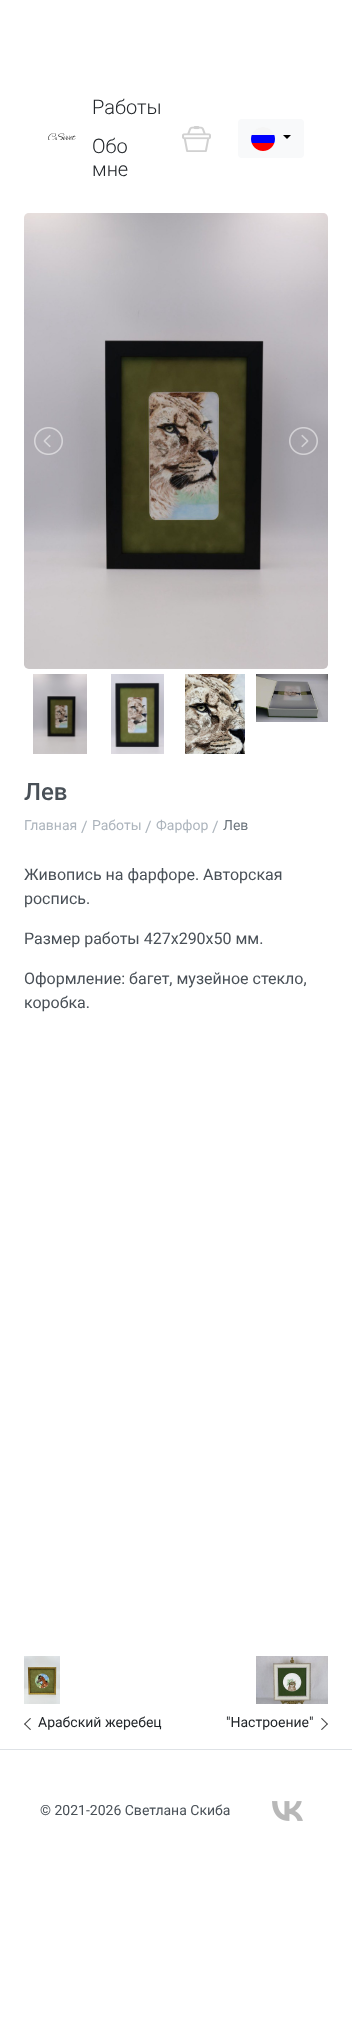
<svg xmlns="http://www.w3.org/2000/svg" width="352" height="2039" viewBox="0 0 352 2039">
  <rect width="100%" height="100%" fill="rgb(255,255,255)"/>
  <image x="48" y="133" width="28" height="7" href="pic1.png"/>
  <g font-family="Roboto" font-size="20" font-weight="300" fill="rgb(33,37,41)">
    <text>
      <tspan x="92" y="114">Работы</tspan>
      <tspan x="92" y="153">Обо</tspan>
      <tspan x="92" y="176">мне</tspan>
    </text>
  </g>
  <image x="182" y="126" width="29" height="26" href="pic2.png"/>
  <rect x="238" y="119" width="66" height="39" rx="4" fill="rgb(248,249,250)"/>
  <image x="251" y="127" width="24" height="24" href="pic3.png"/>
  <path d="M283 135H291L287 139Z" fill="rgb(0,0,0)"/>
  <image x="24" y="213" width="304" height="456" href="pic4.png"/>
  <image x="34" y="427" width="29" height="28" href="pic5.png"/>
  <image x="289" y="427" width="29" height="28" href="pic6.png"/>
  <image x="33" y="674" width="54" height="80" href="pic7.png"/>
  <image x="111" y="674" width="53" height="80" href="pic8.png"/>
  <image x="185" y="674" width="60" height="80" href="pic9.png"/>
  <image x="256" y="674" width="72" height="48" href="pic10.png"/>
  <text x="24" y="800" font-family="Roboto" font-size="24" font-weight="500" fill="rgb(73,80,87)">Лев</text>
  <text x="24" y="830" font-family="Roboto" font-size="14" fill="rgb(173,181,189)">Главная</text>
  <text x="81" y="832" font-family="Roboto" font-size="16" fill="rgb(173,181,189)">/</text>
  <text x="92" y="830" font-family="Roboto" font-size="14" fill="rgb(173,181,189)">Работы</text>
  <text x="145" y="832" font-family="Roboto" font-size="16" fill="rgb(173,181,189)">/</text>
  <text x="156" y="830" font-family="Roboto" font-size="14" fill="rgb(173,181,189)">Фарфор</text>
  <text x="212" y="832" font-family="Roboto" font-size="16" fill="rgb(173,181,189)">/</text>
  <text x="223" y="830" font-family="Roboto" font-size="14" fill="rgb(108,117,125)">Лев</text>
  <g font-family="Roboto" font-size="16" fill="rgb(73,80,87)">
    <text>
      <tspan x="24" y="880">Живопись на фарфоре. Авторская</tspan>
      <tspan x="24" y="904">роспись.</tspan>
    </text>
    <text x="24" y="944">Размер работы 427х290х50 мм.</text>
    <text>
      <tspan x="24" y="984">Оформление: багет, музейное стекло,</tspan>
      <tspan x="24" y="1008">коробка.</tspan>
    </text>
  </g>
  <image x="24" y="1656" width="36" height="48" href="pic11.png"/>
  <image x="24" y="1718" width="7" height="12" href="pic12.png"/>
  <text x="38" y="1727" font-family="Roboto" font-size="14" fill="rgb(33,37,41)">Арабский жеребец</text>
  <image x="256" y="1656" width="72" height="48" href="pic13.png"/>
  <text x="226" y="1727" font-family="Roboto" font-size="14" fill="rgb(33,37,41)">"Настроение"</text>
  <image x="321" y="1718" width="7" height="12" href="pic14.png"/>
  <rect x="0" y="1749" width="352" height="1" fill="rgb(222,226,230)"/>
  <text x="40" y="1815" font-family="Roboto" font-size="14" fill="rgb(73,80,87)">© 2021-2026 Светлана Скиба</text>
  <image x="272" y="1801" width="31" height="20" href="pic15.png"/>
</svg>
